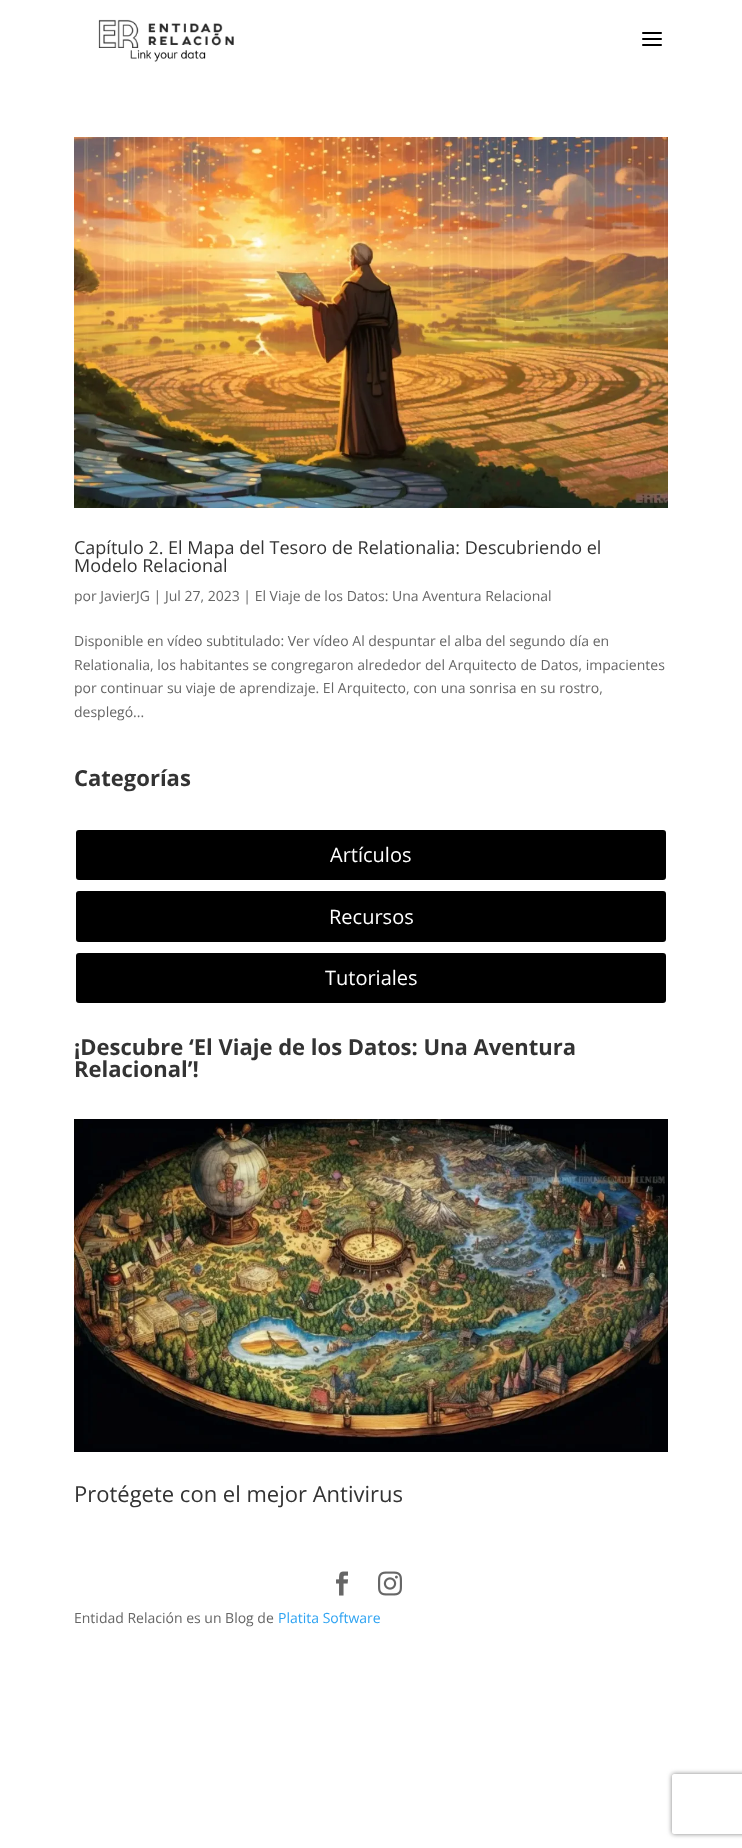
<svg xmlns="http://www.w3.org/2000/svg" width="742" height="1848" viewBox="0 0 742 1848">
  <defs>
    <clipPath id="clip1"><path d="M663 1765H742V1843H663ZM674 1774H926C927 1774 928 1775 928 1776V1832C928 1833 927 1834 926 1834H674C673 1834 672 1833 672 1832V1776C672 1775 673 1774 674 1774Z" clip-rule="evenodd"/></clipPath>
  </defs>
  <rect width="100%" height="100%" fill="rgb(255,255,255)"/>
  <image x="98" y="19" width="136" height="43" href="pic1.png"/>
  <image x="642" y="32" width="20" height="14" href="pic2.png"/>
  <image x="74" y="137" width="594" height="371" href="pic3.png"/>
  <g font-family="Open Sans" font-size="18" fill="rgb(51,51,51)">
    <text>
      <tspan x="74" y="554">Capítulo 2. El Mapa del Tesoro de Relationalia: Descubriendo el</tspan>
      <tspan x="74" y="572">Modelo Relacional</tspan>
    </text>
  </g>
  <g font-family="Open Sans" font-size="14" fill="rgb(102,102,102)">
    <text x="74" y="601">por JavierJG | Jul 27, 2023 | El Viaje de los Datos: Una Aventura Relacional</text>
    <text>
      <tspan x="74" y="646">Disponible en vídeo subtitulado: Ver vídeo Al despuntar el alba del segundo día en</tspan>
      <tspan x="74" y="670">Relationalia, los habitantes se congregaron alrededor del Arquitecto de Datos, impacientes</tspan>
      <tspan x="74" y="693">por continuar su viaje de aprendizaje. El Arquitecto, con una sonrisa en su rostro,</tspan>
      <tspan x="74" y="717">desplegó...</tspan>
    </text>
  </g>
  <text x="74" y="786" font-family="Open Sans" font-size="22" font-weight="bold" fill="rgb(51,51,51)">Categorías</text>
  <rect x="75" y="829" width="592" height="52" rx="4" fill="rgb(0,0,0)" stroke="rgb(255,255,255)" stroke-width="2"/>
  <text x="330" y="862" font-family="Open Sans" font-size="20" fill="rgb(255,255,255)">Artículos</text>
  <rect x="75" y="890" width="592" height="53" rx="4" fill="rgb(0,0,0)" stroke="rgb(255,255,255)" stroke-width="2"/>
  <text x="329" y="924" font-family="Open Sans" font-size="20" fill="rgb(255,255,255)">Recursos</text>
  <rect x="75" y="952" width="592" height="52" rx="4" fill="rgb(0,0,0)" stroke="rgb(255,255,255)" stroke-width="2"/>
  <text x="325" y="985" font-family="Open Sans" font-size="20" fill="rgb(255,255,255)">Tutoriales</text>
  <g font-family="Open Sans" font-size="22" font-weight="bold" fill="rgb(51,51,51)">
    <text>
      <tspan x="74" y="1055">¡Descubre ‘El Viaje de los Datos: Una Aventura</tspan>
      <tspan x="74" y="1077">Relacional’!</tspan>
    </text>
  </g>
  <image x="74" y="1119" width="594" height="333" href="pic4.png"/>
  <text x="74" y="1502" font-family="Open Sans" font-size="22" fill="rgb(51,51,51)">Protégete con el mejor Antivirus</text>
  <image x="336" y="1571" width="12" height="25" href="pic5.png"/>
  <image x="378" y="1571" width="24" height="25" href="pic6.png"/>
  <text x="74" y="1623" font-family="Open Sans" font-size="14" fill="rgb(102,102,102)">Entidad Relación es un Blog de</text>
  <text x="278" y="1623" font-family="Open Sans" font-size="14" fill="rgb(46,163,242)">Platita Software</text>
  <g clip-path="url(#clip1)">
    <rect x="672" y="1774" width="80" height="60" rx="2" fill="rgb(128,128,128)" filter="blur(2.5px)"/>
  </g>
</svg>
